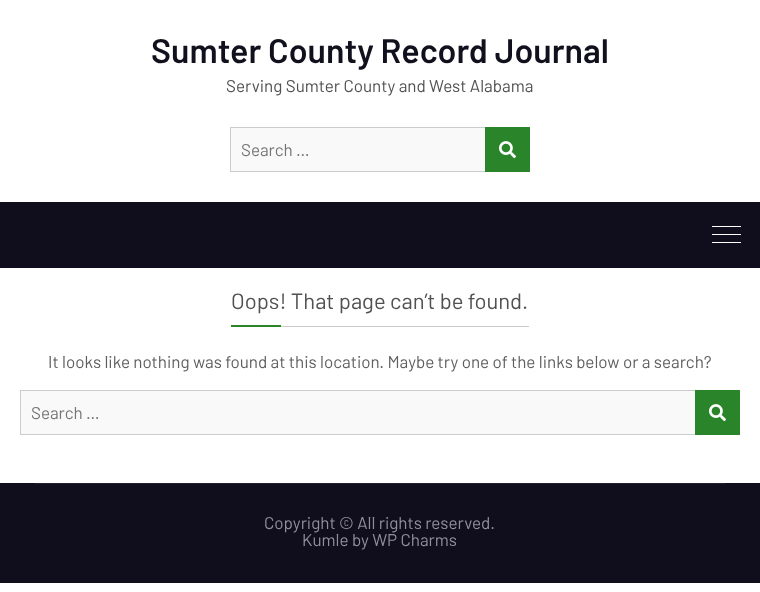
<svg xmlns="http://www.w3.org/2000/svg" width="760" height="592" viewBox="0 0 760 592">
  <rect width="100%" height="100%" fill="rgb(255,255,255)"/>
  <text x="151" y="63" font-family="Barlow" font-size="34" font-weight="600" fill="rgb(17,16,29)">Sumter County Record Journal</text>
  <text x="226" y="92" font-family="Barlow" font-size="17" fill="rgb(81,81,81)">Serving Sumter County and West Alabama</text>
  <rect x="231" y="128" width="254" height="43" fill="rgb(249,249,249)"/>
  <rect x="230.5" y="127.5" width="299" height="44" fill="none" stroke="rgb(204,204,204)"/>
  <text x="241" y="156" font-family="Barlow" font-size="17" fill="rgb(117,117,117)">Search …</text>
  <rect x="485" y="127" width="45" height="45" fill="rgb(41,132,42)"/>
  <image x="499" y="141" width="17" height="18" href="pic1.png"/>
  <rect x="0" y="202" width="760" height="66" fill="rgb(16,14,28)"/>
  <rect x="712" y="226" width="29" height="1" fill="rgb(255,255,255)"/>
  <rect x="712" y="234" width="29" height="1" fill="rgb(255,255,255)"/>
  <rect x="712" y="242" width="29" height="1" fill="rgb(255,255,255)"/>
  <rect x="281" y="326" width="248" height="1" fill="rgb(204,204,204)"/>
  <text x="231" y="309" font-family="Barlow" font-size="22" fill="rgb(81,81,81)">Oops! That page can’t be found.</text>
  <rect x="231" y="325" width="50" height="2" fill="rgb(41,132,42)"/>
  <text x="48" y="368" font-family="Barlow" font-size="17" fill="rgb(95,95,95)">It looks like nothing was found at this location. Maybe try one of the links below or a search?</text>
  <rect x="21" y="391" width="674" height="43" fill="rgb(249,249,249)"/>
  <rect x="20.5" y="390.5" width="719" height="44" fill="none" stroke="rgb(204,204,204)"/>
  <text x="31" y="419" font-family="Barlow" font-size="17" fill="rgb(117,117,117)">Search …</text>
  <rect x="695" y="390" width="45" height="45" fill="rgb(41,132,42)"/>
  <image x="709" y="404" width="17" height="18" href="pic1.png"/>
  <rect x="0" y="483" width="760" height="100" fill="rgb(16,14,28)"/>
  <rect x="35" y="483" width="690" height="1" fill="rgb(35,33,47)"/>
  <g font-family="Barlow" font-size="17" fill="rgb(145,143,157)">
    <text x="264" y="529">Copyright © All rights reserved.</text>
    <text x="302" y="546">Kumle by WP Charms</text>
  </g>
</svg>
